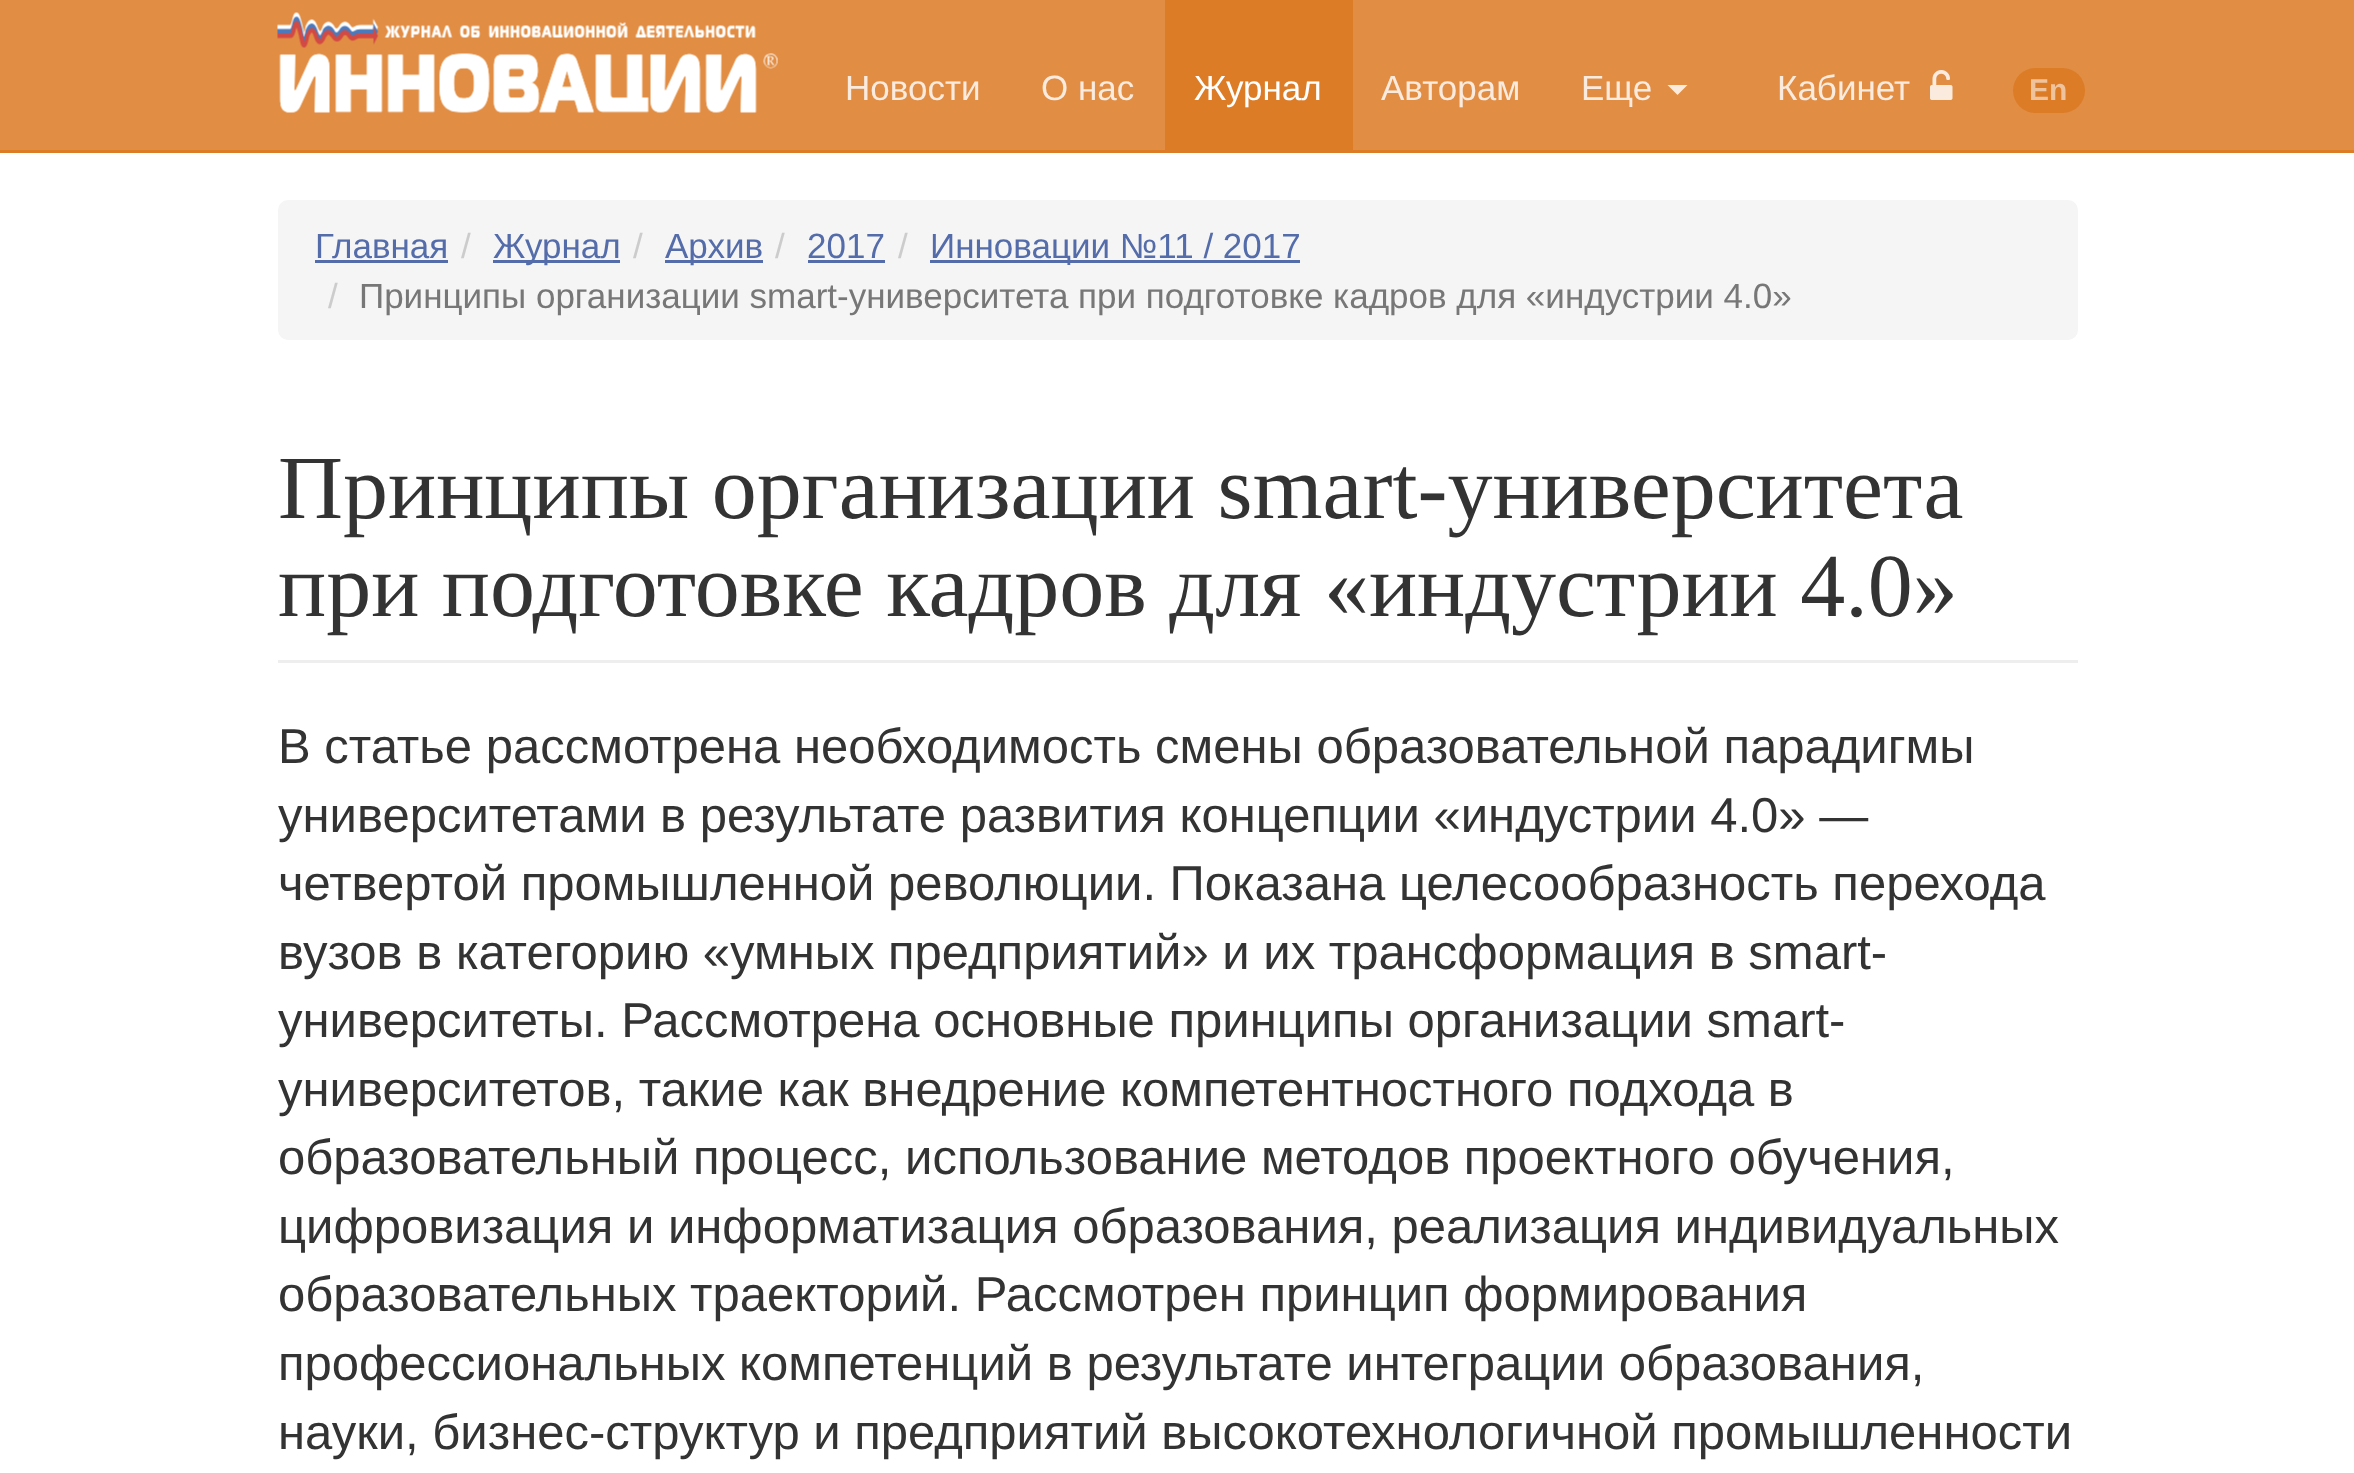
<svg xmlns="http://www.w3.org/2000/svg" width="2354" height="1473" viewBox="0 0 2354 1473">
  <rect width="100%" height="100%" fill="rgb(255,255,255)"/>
  <rect x="0" y="0" width="2354" height="150" fill="rgb(225,141,68)"/>
  <rect x="0" y="150" width="2354" height="3" fill="rgb(220,124,39)"/>
  <image x="277" y="12" width="501" height="101" href="pic1.png"/>
  <g font-family="Liberation Sans" font-size="35" fill="rgb(250,235,222)">
    <text x="845" y="100">Новости</text>
    <text x="1041" y="100">О нас</text>
  </g>
  <rect x="1165" y="0" width="188" height="150" fill="rgb(220,124,39)"/>
  <text x="1194" y="100" font-family="Liberation Sans" font-size="35" fill="rgb(255,255,255)">Журнал</text>
  <g font-family="Liberation Sans" font-size="35" fill="rgb(250,235,222)">
    <text x="1381" y="100">Авторам</text>
    <text x="1581" y="100">Еще</text>
  </g>
  <path d="M1667.5 85H1687.5L1677.5 95Z" fill="rgb(250,235,222)"/>
  <text x="1777" y="100" font-family="Liberation Sans" font-size="35" fill="rgb(250,235,222)">Кабинет</text>
  <image x="1930" y="70" width="23" height="30" href="pic2.png"/>
  <rect x="2013" y="68" width="72" height="45" rx="22.5" fill="rgb(220,124,39)"/>
  <text x="2029" y="100" font-family="Liberation Sans" font-size="30" font-weight="bold" fill="rgb(239,195,156)">En</text>
  <rect x="278" y="200" width="1800" height="140" rx="10" fill="rgb(245,245,245)"/>
  <text x="315" y="258" font-family="Liberation Sans" font-size="35" fill="rgb(84,109,170)">Главная</text>
  <rect x="315" y="260" width="133" height="3" fill="rgb(84,109,170)"/>
  <text x="461" y="258" font-family="Liberation Sans" font-size="35" fill="rgb(204,204,204)">/</text>
  <rect x="493" y="260" width="127" height="3" fill="rgb(84,109,170)"/>
  <text x="493" y="258" font-family="Liberation Sans" font-size="35" fill="rgb(84,109,170)">Журнал</text>
  <text x="633" y="258" font-family="Liberation Sans" font-size="35" fill="rgb(204,204,204)">/</text>
  <rect x="665" y="260" width="98" height="3" fill="rgb(84,109,170)"/>
  <text x="665" y="258" font-family="Liberation Sans" font-size="35" fill="rgb(84,109,170)">Архив</text>
  <text x="775" y="258" font-family="Liberation Sans" font-size="35" fill="rgb(204,204,204)">/</text>
  <text x="807" y="258" font-family="Liberation Sans" font-size="35" fill="rgb(84,109,170)">2017</text>
  <rect x="808" y="260" width="77" height="3" fill="rgb(84,109,170)"/>
  <text x="898" y="258" font-family="Liberation Sans" font-size="35" fill="rgb(204,204,204)">/</text>
  <rect x="930" y="260" width="370" height="3" fill="rgb(84,109,170)"/>
  <text x="930" y="258" font-family="Liberation Sans" font-size="35" fill="rgb(84,109,170)">Инновации №11 / 2017</text>
  <text x="328" y="308" font-family="Liberation Sans" font-size="35" fill="rgb(204,204,204)">/</text>
  <text x="359" y="308" font-family="Liberation Sans" font-size="35" fill="rgb(119,119,119)">Принципы организации smart-университета при подготовке кадров для «индустрии 4.0»</text>
  <rect x="278" y="660" width="1800" height="3" fill="rgb(238,238,238)"/>
  <g font-family="Liberation Serif" font-size="90" fill="rgb(51,51,51)">
    <text>
      <tspan x="278" y="518">Принципы организации smart-университета</tspan>
      <tspan x="278" y="616">при подготовке кадров для «индустрии 4.0»</tspan>
    </text>
  </g>
  <g font-family="Liberation Sans" font-size="49" fill="rgb(51,51,51)">
    <text>
      <tspan x="278" y="763">В статье рассмотрена необходимость смены образовательной парадигмы</tspan>
      <tspan x="278" y="832">университетами в результате развития концепции «индустрии 4.0» —</tspan>
      <tspan x="278" y="900">четвертой промышленной революции. Показана целесообразность перехода</tspan>
      <tspan x="278" y="969">вузов в категорию «умных предприятий» и их трансформация в smart-</tspan>
      <tspan x="278" y="1037">университеты. Рассмотрена основные принципы организации smart-</tspan>
      <tspan x="278" y="1106">университетов, такие как внедрение компетентностного подхода в</tspan>
      <tspan x="278" y="1174">образовательный процесс, использование методов проектного обучения,</tspan>
      <tspan x="278" y="1243">цифровизация и информатизация образования, реализация индивидуальных</tspan>
      <tspan x="278" y="1311">образовательных траекторий. Рассмотрен принцип формирования</tspan>
      <tspan x="278" y="1380">профессиональных компетенций в результате интеграции образования,</tspan>
      <tspan x="278" y="1449">науки, бизнес-структур и предприятий высокотехнологичной промышленности</tspan>
    </text>
  </g>
</svg>
